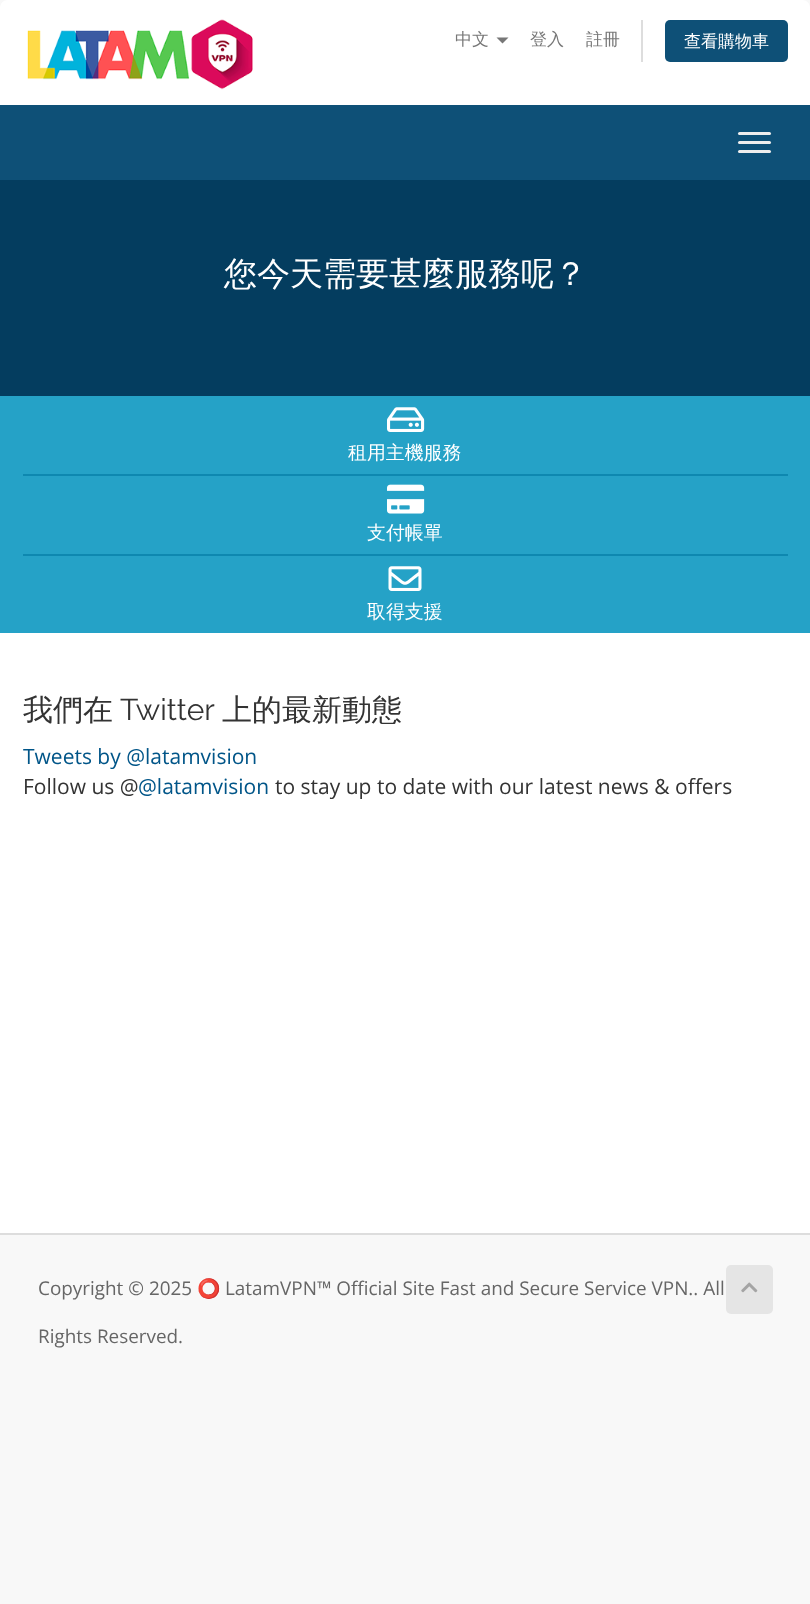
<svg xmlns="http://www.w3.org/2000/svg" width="810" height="1604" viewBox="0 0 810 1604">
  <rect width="100%" height="100%" fill="rgb(248,248,248)"/>
  <path d="M8 0H802C806.5 0 810 3.5 810 8V105H0V8C0 3.5 3.5 0 8 0Z" fill="rgb(255,255,255)"/>
  <image x="27" y="19" width="226" height="71" href="pic1.png"/>
  <text x="455" y="45" font-family="WenQuanYi Zen Hei" font-size="17" font-weight="500" fill="rgb(119,119,119)">中文</text>
  <path d="M496.5 37.5H508.5L502.5 43.5Z" fill="rgb(119,119,119)"/>
  <g font-family="WenQuanYi Zen Hei" font-size="17" font-weight="500" fill="rgb(119,119,119)">
    <text x="530" y="45">登入</text>
    <text x="586" y="45">註冊</text>
  </g>
  <rect x="641" y="20" width="2" height="42" fill="rgb(221,221,221)"/>
  <rect x="665" y="20" width="123" height="42" rx="5" fill="rgb(14,80,119)"/>
  <text x="684" y="47" font-family="WenQuanYi Zen Hei" font-size="17" font-weight="500" fill="rgb(255,255,255)">查看購物車</text>
  <rect x="0" y="105" width="810" height="75" fill="rgb(14,80,119)"/>
  <rect x="738" y="132" width="33" height="3" rx="1.5" fill="rgb(238,238,238)"/>
  <rect x="738" y="141" width="33" height="3" rx="1.5" fill="rgb(238,238,238)"/>
  <rect x="738" y="150" width="33" height="3" rx="1.5" fill="rgb(238,238,238)"/>
  <rect x="0" y="180" width="810" height="216" fill="rgb(4,61,95)"/>
  <text x="224" y="285" font-family="WenQuanYi Zen Hei" font-size="33" font-weight="500" fill="rgb(255,255,255)">您今天需要甚麼服務呢？</text>
  <rect x="0" y="396" width="810" height="237" fill="rgb(37,162,199)"/>
  <rect x="23" y="474" width="765" height="2" fill="rgb(14,136,176)"/>
  <image x="387" y="407" width="38" height="25" href="pic2.png"/>
  <text x="348" y="459" font-family="WenQuanYi Zen Hei" font-size="18.9" font-weight="500" fill="rgb(255,255,255)">租用主機服務</text>
  <rect x="23" y="554" width="765" height="2" fill="rgb(14,136,176)"/>
  <image x="387" y="484" width="38" height="30" href="pic3.png"/>
  <text x="367" y="539" font-family="WenQuanYi Zen Hei" font-size="18.9" font-weight="500" fill="rgb(255,255,255)">支付帳單</text>
  <image x="388" y="566" width="34" height="25" href="pic4.png"/>
  <text x="367" y="618" font-family="WenQuanYi Zen Hei" font-size="18.9" font-weight="500" fill="rgb(255,255,255)">取得支援</text>
  <rect x="0" y="633" width="810" height="600" fill="rgb(255,255,255)"/>
  <text x="23" y="720" font-family="WenQuanYi Zen Hei" font-size="30" font-weight="500" fill="rgb(51,51,51)">我們在</text>
  <text x="120" y="720" font-family="Raleway" font-size="30" fill="rgb(51,51,51)">Twitter</text>
  <text x="222" y="720" font-family="WenQuanYi Zen Hei" font-size="30" font-weight="500" fill="rgb(51,51,51)">上的最新動態</text>
  <text x="23" y="764" font-family="Open Sans" font-size="21" fill="rgb(0,85,136)">Tweets by @latamvision</text>
  <text x="23" y="794" font-family="Open Sans" font-size="21" fill="rgb(51,51,51)">Follow us @</text>
  <text x="138" y="794" font-family="Open Sans" font-size="21" fill="rgb(0,85,136)">@latamvision</text>
  <text x="275" y="794" font-family="Open Sans" font-size="21" fill="rgb(51,51,51)">to stay up to date with our latest news &amp; offers</text>
  <rect x="0" y="1233" width="810" height="2" fill="rgb(221,221,221)"/>
  <text x="38" y="1295" font-family="Open Sans" font-size="18.9" fill="rgb(102,102,102)">Copyright © 2025</text>
  <text x="197" y="1295" font-family="Noto Color Emoji" font-size="18.9" fill="rgb(102,102,102)">⭕</text>
  <g font-family="Open Sans" font-size="18.9" fill="rgb(102,102,102)">
    <text x="225" y="1295">LatamVPN™ Official Site Fast and Secure Service VPN.. All</text>
    <text x="38" y="1343">Rights Reserved.</text>
  </g>
  <rect x="726" y="1265" width="47" height="49" rx="5" fill="rgb(229,229,229)"/>
  <image x="741" y="1282" width="17" height="11" href="pic5.png"/>
</svg>
